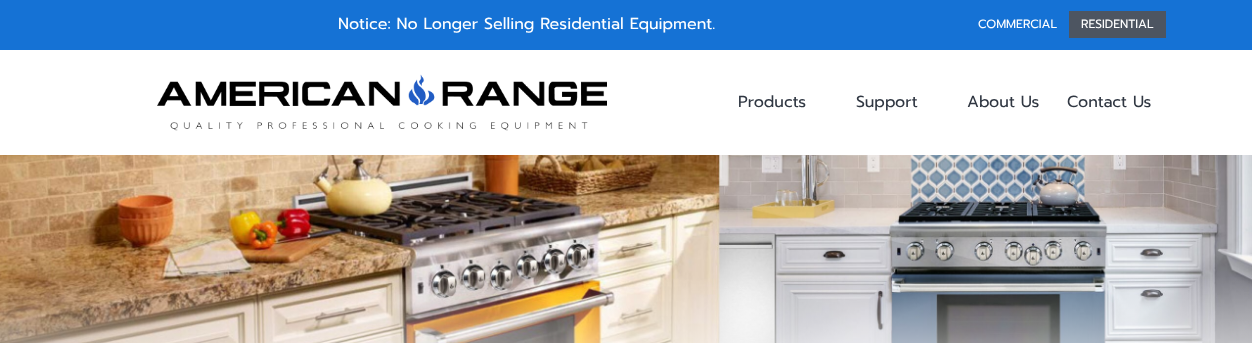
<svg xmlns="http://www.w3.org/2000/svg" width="1252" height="343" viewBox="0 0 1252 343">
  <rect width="100%" height="100%" fill="rgb(255,255,255)"/>
  <rect x="0" y="0" width="1252" height="50" fill="rgb(21,114,213)"/>
  <text x="338" y="29" font-family="Prompt" font-size="16" fill="rgb(255,255,255)">Notice: No Longer Selling Residential Equipment.</text>
  <text x="978" y="28" font-family="Prompt" font-size="12" fill="rgb(255,255,255)">COMMERCIAL</text>
  <rect x="1069" y="11" width="97" height="27" fill="rgb(77,85,97)"/>
  <text x="1081" y="28" font-family="Prompt" font-size="12" fill="rgb(255,255,255)">RESIDENTIAL</text>
  <image x="157" y="74" width="450" height="57" href="pic1.png"/>
  <g font-family="Prompt" font-size="16" fill="rgb(48,55,66)">
    <text x="738" y="107">Products</text>
    <text x="856" y="107">Support</text>
    <text x="967" y="107">About Us</text>
    <text x="1067" y="107">Contact Us</text>
  </g>
  <image x="0" y="155" width="1252" height="188" href="pic2.png"/>
</svg>
